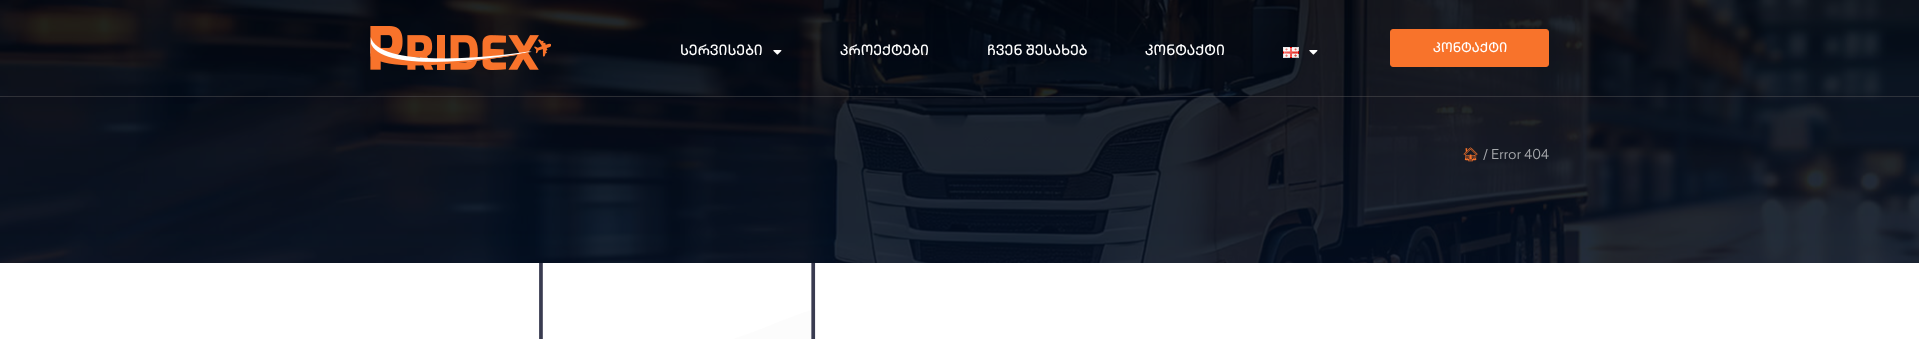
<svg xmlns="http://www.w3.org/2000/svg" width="1919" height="339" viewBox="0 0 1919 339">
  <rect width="100%" height="100%" fill="rgb(255,255,255)"/>
  <image x="0" y="0" width="1919" height="263" href="pic5.png"/>
  <rect x="0" y="96" width="1919" height="1" fill="rgba(95,95,95,0.42)"/>
  <image x="370" y="26" width="181" height="44" href="pic1.png"/>
  <text x="680" y="55" font-family="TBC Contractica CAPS" font-size="14" font-weight="500" fill="rgb(255,255,255)">სერვისები</text>
  <image x="773" y="50" width="9" height="5" href="pic2.png"/>
  <g font-family="TBC Contractica CAPS" font-size="14" font-weight="500" fill="rgb(255,255,255)">
    <text x="840" y="55">პროექტები</text>
    <text x="987" y="55">ჩვენ შესახებ</text>
    <text x="1145" y="55">კონტაქტი</text>
  </g>
  <image x="1283" y="47" width="16" height="11" href="pic3.png"/>
  <image x="1309" y="50" width="9" height="5" href="pic4.png"/>
  <rect x="1390.5" y="29.5" width="158" height="37" rx="2.5" fill="rgb(248,115,43)" stroke="rgb(248,115,43)"/>
  <text x="1433" y="52" font-family="TBC Contractica CAPS" font-size="13" font-weight="500" fill="rgb(255,255,255)">კონტაქტი</text>
  <text x="1462" y="159" font-family="Noto Emoji" font-size="13.5" fill="rgb(248,115,43)">🏠︎</text>
  <g font-family="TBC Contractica" font-size="13.5" fill="rgb(166,168,172)">
    <text x="1483" y="159">/</text>
    <text x="1491" y="159">Error 404</text>
  </g>
  <image x="539" y="263" width="277" height="76" href="pic6.png"/>
</svg>
